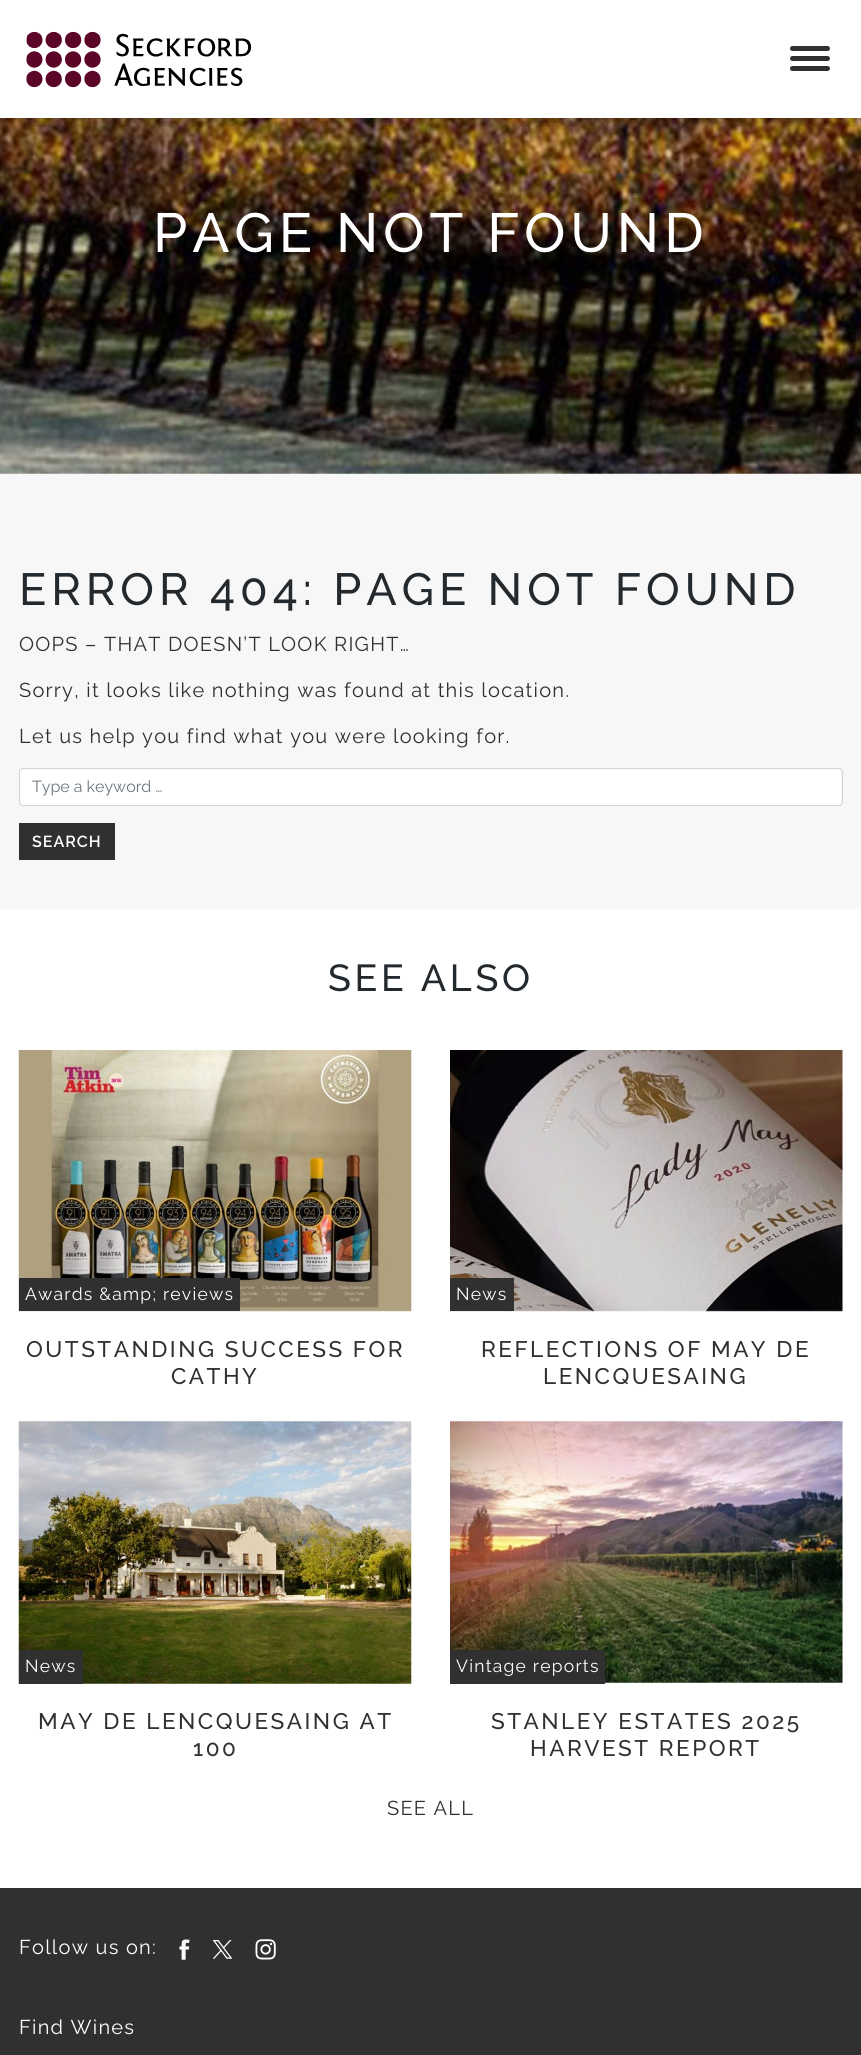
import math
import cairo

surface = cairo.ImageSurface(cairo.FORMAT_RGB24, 861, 2055)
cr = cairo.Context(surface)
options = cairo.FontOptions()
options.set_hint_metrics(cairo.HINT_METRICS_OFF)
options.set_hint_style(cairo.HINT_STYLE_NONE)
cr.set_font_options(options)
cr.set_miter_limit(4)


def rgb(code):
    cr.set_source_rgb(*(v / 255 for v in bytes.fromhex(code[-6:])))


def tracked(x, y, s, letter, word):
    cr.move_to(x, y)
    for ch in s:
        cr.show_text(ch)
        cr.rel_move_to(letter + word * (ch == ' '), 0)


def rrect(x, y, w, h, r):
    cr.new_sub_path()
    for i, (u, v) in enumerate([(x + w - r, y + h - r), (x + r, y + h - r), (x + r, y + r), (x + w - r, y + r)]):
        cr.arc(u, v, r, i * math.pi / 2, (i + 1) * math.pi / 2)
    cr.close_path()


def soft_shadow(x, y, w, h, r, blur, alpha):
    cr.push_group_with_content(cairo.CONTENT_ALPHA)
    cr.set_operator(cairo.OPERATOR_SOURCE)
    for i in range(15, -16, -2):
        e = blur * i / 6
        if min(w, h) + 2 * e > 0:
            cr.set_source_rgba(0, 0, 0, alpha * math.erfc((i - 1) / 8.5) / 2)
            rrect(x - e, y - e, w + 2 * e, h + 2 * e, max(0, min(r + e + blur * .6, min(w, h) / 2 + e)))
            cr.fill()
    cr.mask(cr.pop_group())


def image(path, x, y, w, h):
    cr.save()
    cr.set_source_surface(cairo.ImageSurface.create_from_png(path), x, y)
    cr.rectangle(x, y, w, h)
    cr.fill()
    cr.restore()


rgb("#f7f7f7")
cr.paint()
image("img/2.png", 0, 118, 861, 356)
rgb("#000000")
soft_shadow(-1, 5, 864, 120, 0, 11, 0.28)
rgb("#ffffff")
cr.rectangle(0, 0, 861, 118)
cr.fill()
image("img/1.png", 26, 31, 225, 57)
rgb("#303030")
rrect(790, 46, 40, 5, 2.5)
cr.fill()
rrect(790, 56, 40, 5, 2.5)
cr.fill()
rrect(790, 66, 40, 5, 2.5)
cr.fill()
rgb("#ffffff")
rrect(20, 769, 821, 36, 2.5)
cr.fill()
rrect(19.5, 768.5, 823, 37, 3.5)
rgb("#ced4da")
cr.set_line_width(1)
cr.stroke()
rgb("#303030")
cr.rectangle(19, 823, 96, 37)
cr.fill()
rgb("#ffffff")
cr.rectangle(0, 909, 861, 979)
cr.fill()
image("img/3.png", 18, 1050, 394, 262)
rgb("#303030")
cr.rectangle(19, 1278, 221, 33)
cr.fill()
image("img/4.png", 450, 1050, 393, 262)
cr.rectangle(450, 1278, 64, 33)
cr.fill()
image("img/5.png", 18, 1421, 394, 263)
cr.rectangle(19, 1650, 64, 34)
cr.fill()
image("img/6.png", 450, 1421, 393, 263)
cr.rectangle(450, 1650, 155, 34)
cr.fill()
cr.rectangle(0, 1888, 861, 167)
cr.fill()
image("img/7.png", 179, 1939, 11, 21)
image("img/8.png", 213, 1940, 20, 19)
image("img/9.png", 255, 1939, 21, 21)
cr.select_font_face("Raleway Medium")
cr.set_font_size(55)
rgb("#ffffff")
tracked(153, 252, "PAGE NOT FOUND", 5, 0)
cr.set_font_size(45)
rgb("#24292e")
tracked(19, 605, "ERROR 404: PAGE NOT FOUND", 5, 0)
cr.select_font_face("Raleway")
cr.set_font_size(20)
rgb("#303030")
for x, y, s in [
    (19, 651, "OOPS – THAT DOESN’T LOOK RIGHT…"),
    (19, 697, "Sorry, it looks like nothing was found at this location."),
    (19, 743, "Let us help you find what you were looking for."),
]:
    tracked(x, y, s, 1.25, 0)
cr.set_font_size(16)
rgb("#6c757d")
cr.move_to(32, 792)
cr.show_text("Type a keyword …")
cr.select_font_face("Raleway SemiBold")
rgb("#ffffff")
tracked(32, 847, "SEARCH", 1, 0)
cr.select_font_face("Raleway Medium")
cr.set_font_size(37.5)
rgb("#24292e")
tracked(328, 991, "SEE ALSO", 3.75, 0)
cr.select_font_face("Raleway")
cr.set_font_size(17.5)
rgb("#ffffff")
tracked(25, 1300, "Awards &amp; reviews", 1.25, 0)
cr.select_font_face("Raleway Medium")
cr.set_font_size(22.5)
rgb("#303030")
tracked(26, 1357, "OUTSTANDING SUCCESS FOR", 2.5, 0)
tracked(171, 1384, "CATHY", 2.5, 0)
cr.select_font_face("Raleway")
cr.set_font_size(17.5)
rgb("#ffffff")
tracked(456, 1300, "News", 1.25, 0)
cr.select_font_face("Raleway Medium")
cr.set_font_size(22.5)
rgb("#303030")
tracked(481, 1357, "REFLECTIONS OF MAY DE", 2.5, 0)
tracked(543, 1384, "LENCQUESAING", 2.5, 0)
cr.select_font_face("Raleway")
cr.set_font_size(17.5)
rgb("#ffffff")
tracked(25, 1672, "News", 1.25, 0)
cr.select_font_face("Raleway Medium")
cr.set_font_size(22.5)
rgb("#303030")
tracked(38, 1729, "MAY DE LENCQUESAING AT", 2.5, 0)
tracked(193, 1756, "100", 2.5, 0)
cr.select_font_face("Raleway")
cr.set_font_size(17.5)
rgb("#ffffff")
tracked(456, 1672, "Vintage reports", 1.25, 0)
cr.select_font_face("Raleway Medium")
cr.set_font_size(22.5)
rgb("#303030")
tracked(491, 1729, "STANLEY ESTATES 2025", 2.5, 0)
tracked(530, 1756, "HARVEST REPORT", 2.5, 0)
cr.select_font_face("Raleway")
cr.set_font_size(20)
tracked(387, 1815, "SEE ALL", 1.25, 0)
rgb("#ffffff")
tracked(19, 1954, "Follow us on:", 1.25, 0)
tracked(19, 2034, "Find Wines", 1.25, 0)
surface.write_to_png("page.png")
